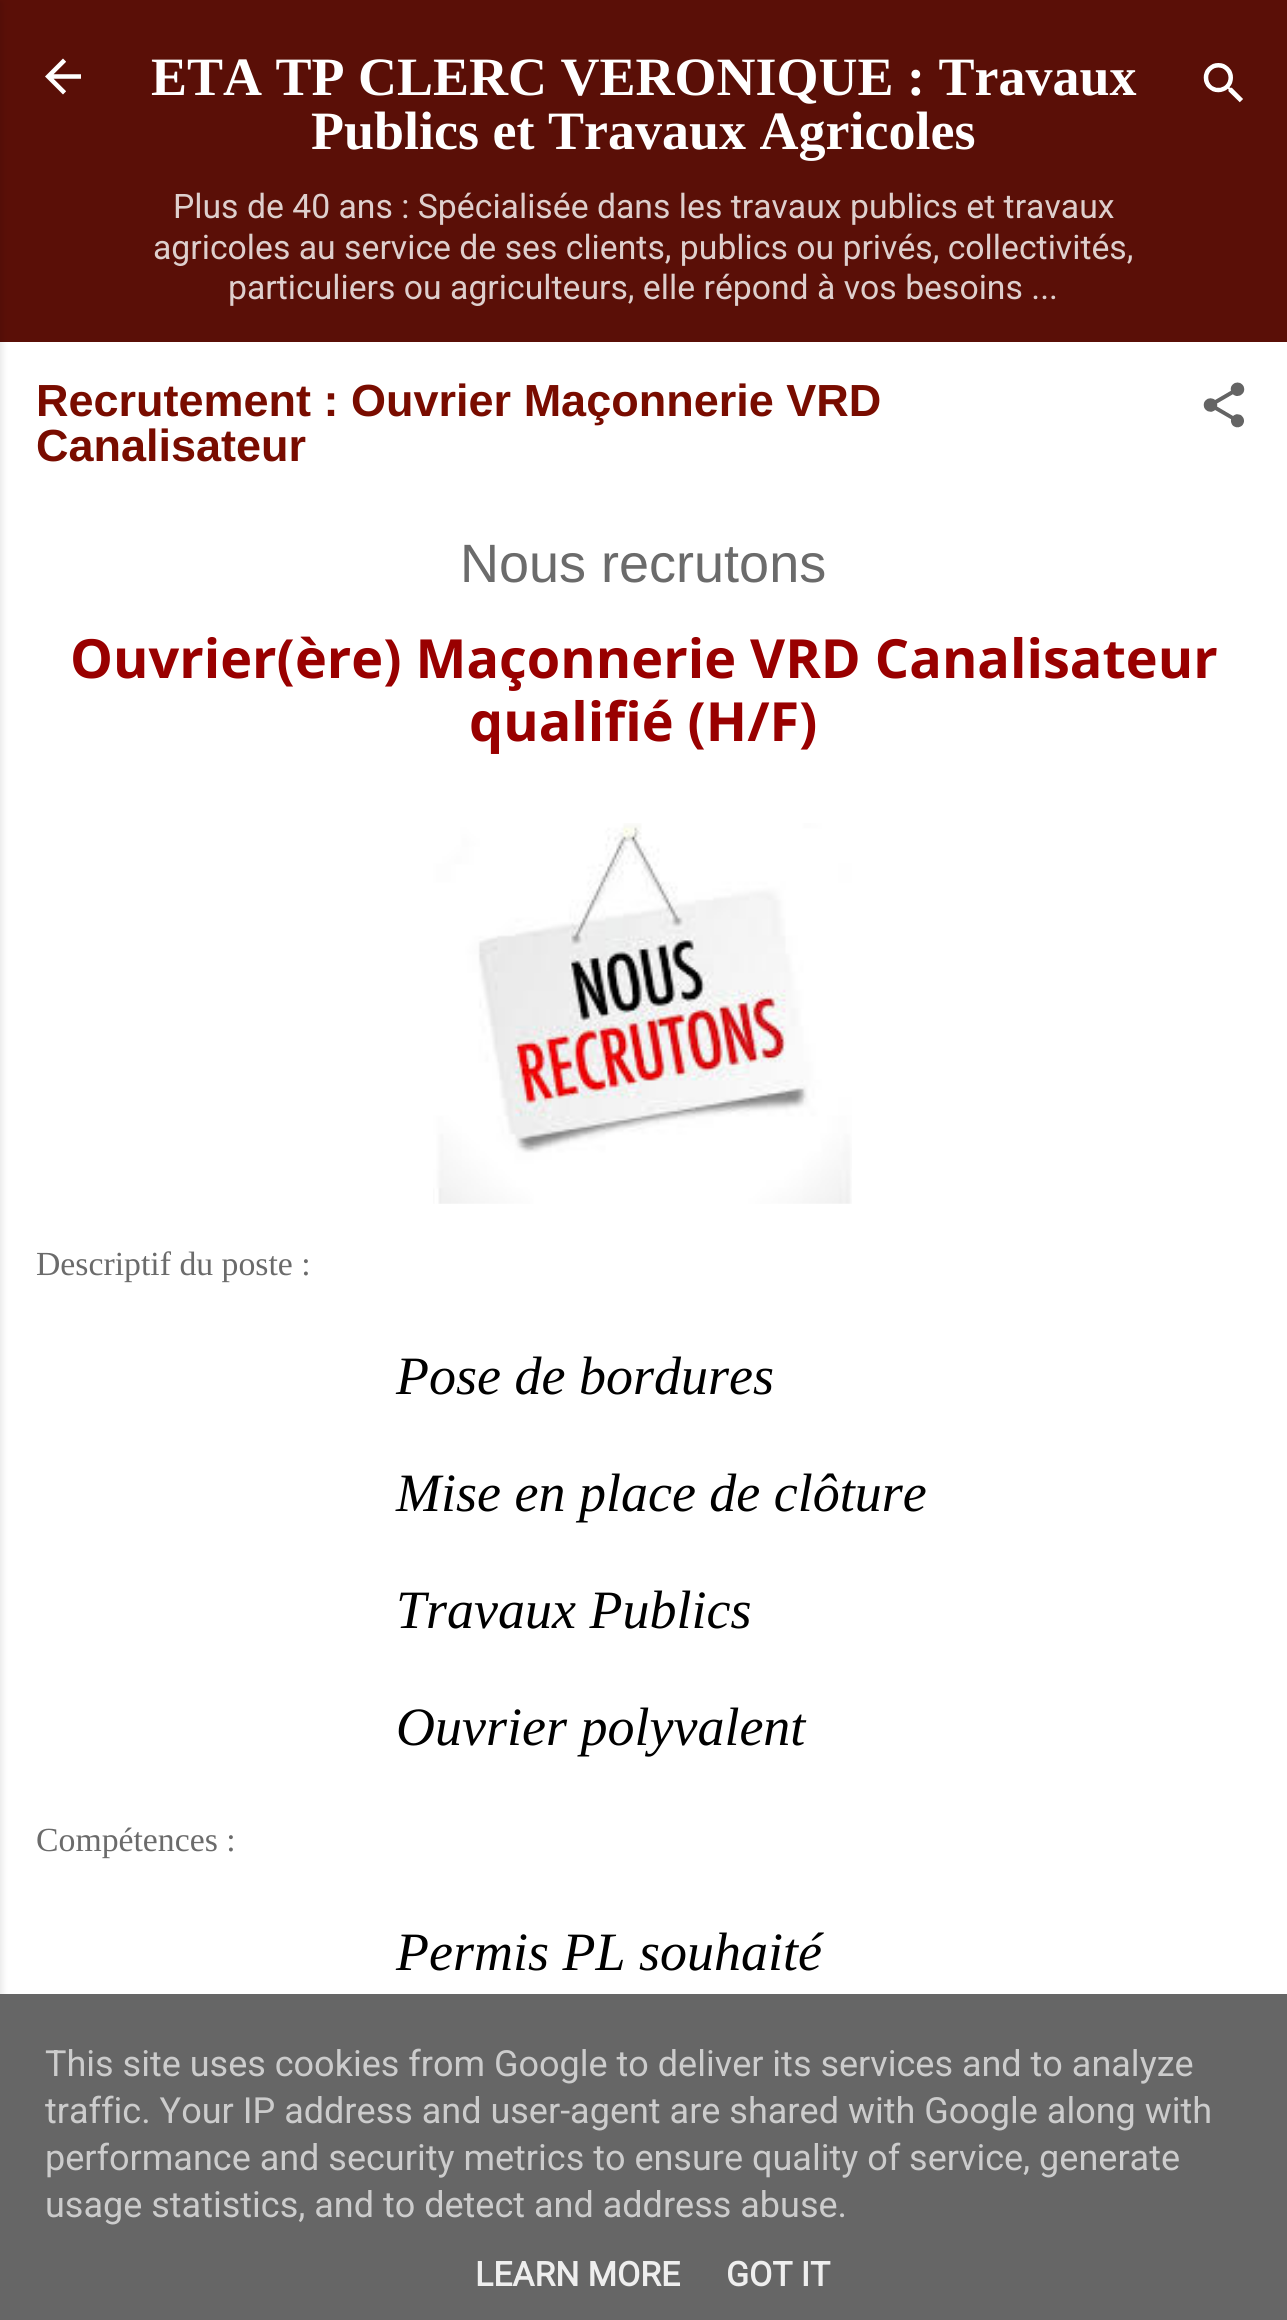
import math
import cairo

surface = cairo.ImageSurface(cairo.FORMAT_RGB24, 1287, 2320)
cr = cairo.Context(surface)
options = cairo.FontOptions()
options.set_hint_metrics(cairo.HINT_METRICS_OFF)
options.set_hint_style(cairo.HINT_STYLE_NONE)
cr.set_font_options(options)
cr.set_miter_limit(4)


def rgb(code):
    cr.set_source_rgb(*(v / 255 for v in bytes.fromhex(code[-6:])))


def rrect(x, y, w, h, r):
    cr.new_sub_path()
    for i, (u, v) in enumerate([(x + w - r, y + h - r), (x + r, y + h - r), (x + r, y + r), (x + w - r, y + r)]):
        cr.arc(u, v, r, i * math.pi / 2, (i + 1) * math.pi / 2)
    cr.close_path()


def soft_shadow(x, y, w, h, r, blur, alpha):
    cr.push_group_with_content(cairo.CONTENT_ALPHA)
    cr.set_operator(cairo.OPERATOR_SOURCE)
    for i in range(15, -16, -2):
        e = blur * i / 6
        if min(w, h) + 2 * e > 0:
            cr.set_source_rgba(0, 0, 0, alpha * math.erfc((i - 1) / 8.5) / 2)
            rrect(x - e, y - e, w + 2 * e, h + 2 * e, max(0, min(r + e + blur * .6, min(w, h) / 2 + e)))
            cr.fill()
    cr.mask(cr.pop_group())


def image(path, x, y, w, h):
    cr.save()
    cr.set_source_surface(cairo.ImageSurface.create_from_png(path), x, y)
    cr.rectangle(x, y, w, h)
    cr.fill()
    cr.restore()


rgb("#5a0f07")
cr.paint()
rgb("#ffffff")
cr.rectangle(0, 342, 1287, 1652)
cr.fill()
rgb("#000000")
soft_shadow(-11, 2, 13, 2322, 0, 3.5, 0.1)
image("img/1.png", 45, 58, 36, 37)
image("img/2.png", 1203, 63, 40, 40)
image("img/3.png", 1203, 382, 42, 46)
image("img/4.png", 433, 823, 419, 381)
rgb("#666666")
cr.rectangle(0, 1994, 1287, 326)
cr.fill()
cr.select_font_face("Liberation Serif", cairo.FONT_SLANT_NORMAL, cairo.FONT_WEIGHT_BOLD)
cr.set_font_size(54)
rgb("#ffffff")
cr.move_to(151, 95)
cr.show_text("ETA TP CLERC VERONIQUE : Travaux")
cr.move_to(311, 149)
cr.show_text("Publics et Travaux Agricoles")
cr.select_font_face("Roboto")
cr.set_font_size(33.75)
rgb("#decfcd")
for x, y, s in [
    (173, 218, "Plus de 40 ans : Spécialisée dans les travaux publics et travaux"),
    (153, 259, "agricoles au service de ses clients, publics ou privés, collectivités,"),
    (228, 299, "particuliers ou agriculteurs, elle répond à vos besoins ..."),
]:
    cr.move_to(x, y)
    cr.show_text(s)
cr.select_font_face("Liberation Sans", cairo.FONT_SLANT_NORMAL, cairo.FONT_WEIGHT_BOLD)
cr.set_font_size(45)
rgb("#790c00")
cr.move_to(36, 416)
cr.show_text("Recrutement : Ouvrier Maçonnerie VRD")
cr.move_to(36, 461)
cr.show_text("Canalisateur")
cr.select_font_face("Liberation Sans")
cr.set_font_size(54)
rgb("#6b6b6b")
cr.move_to(460, 582)
cr.show_text("Nous recrutons")
cr.select_font_face("Open Sans", cairo.FONT_SLANT_NORMAL, cairo.FONT_WEIGHT_BOLD)
rgb("#990000")
cr.move_to(70, 678)
cr.show_text("Ouvrier(ère) Maçonnerie VRD Canalisateur")
cr.move_to(469, 741)
cr.show_text("qualifié (H/F)")
cr.select_font_face("Liberation Serif")
cr.set_font_size(33.75)
rgb("#6b6b6b")
cr.move_to(36, 1275)
cr.show_text("Descriptif du poste :")
cr.select_font_face("Liberation Serif", cairo.FONT_SLANT_ITALIC)
cr.set_font_size(54)
rgb("#000000")
for x, y, s in [
    (396, 1394, "Pose de bordures"),
    (396, 1511, "Mise en place de clôture"),
    (396, 1628, "Travaux Publics"),
    (396, 1745, "Ouvrier polyvalent"),
]:
    cr.move_to(x, y)
    cr.show_text(s)
cr.select_font_face("Liberation Serif")
cr.set_font_size(33.75)
rgb("#6b6b6b")
cr.move_to(36, 1851)
cr.show_text("Compétences :")
cr.select_font_face("Liberation Serif", cairo.FONT_SLANT_ITALIC)
cr.set_font_size(54)
rgb("#000000")
cr.move_to(396, 1970)
cr.show_text("Permis PL souhaité")
cr.select_font_face("Roboto")
cr.set_font_size(36)
rgb("#cccccc")
for x, y, s in [
    (45, 2076, "This site uses cookies from Google to deliver its services and to analyze"),
    (45, 2123, "traffic. Your IP address and user-agent are shared with Google along with"),
    (45, 2170, "performance and security metrics to ensure quality of service, generate"),
    (45, 2217, "usage statistics, and to detect and address abuse."),
]:
    cr.move_to(x, y)
    cr.show_text(s)
cr.select_font_face("Roboto", cairo.FONT_SLANT_NORMAL, cairo.FONT_WEIGHT_BOLD)
cr.set_font_size(33.75)
rgb("#eeeeee")
cr.move_to(475, 2286)
cr.show_text("LEARN MORE")
cr.move_to(726, 2286)
cr.show_text("GOT IT")
surface.write_to_png("page.png")
